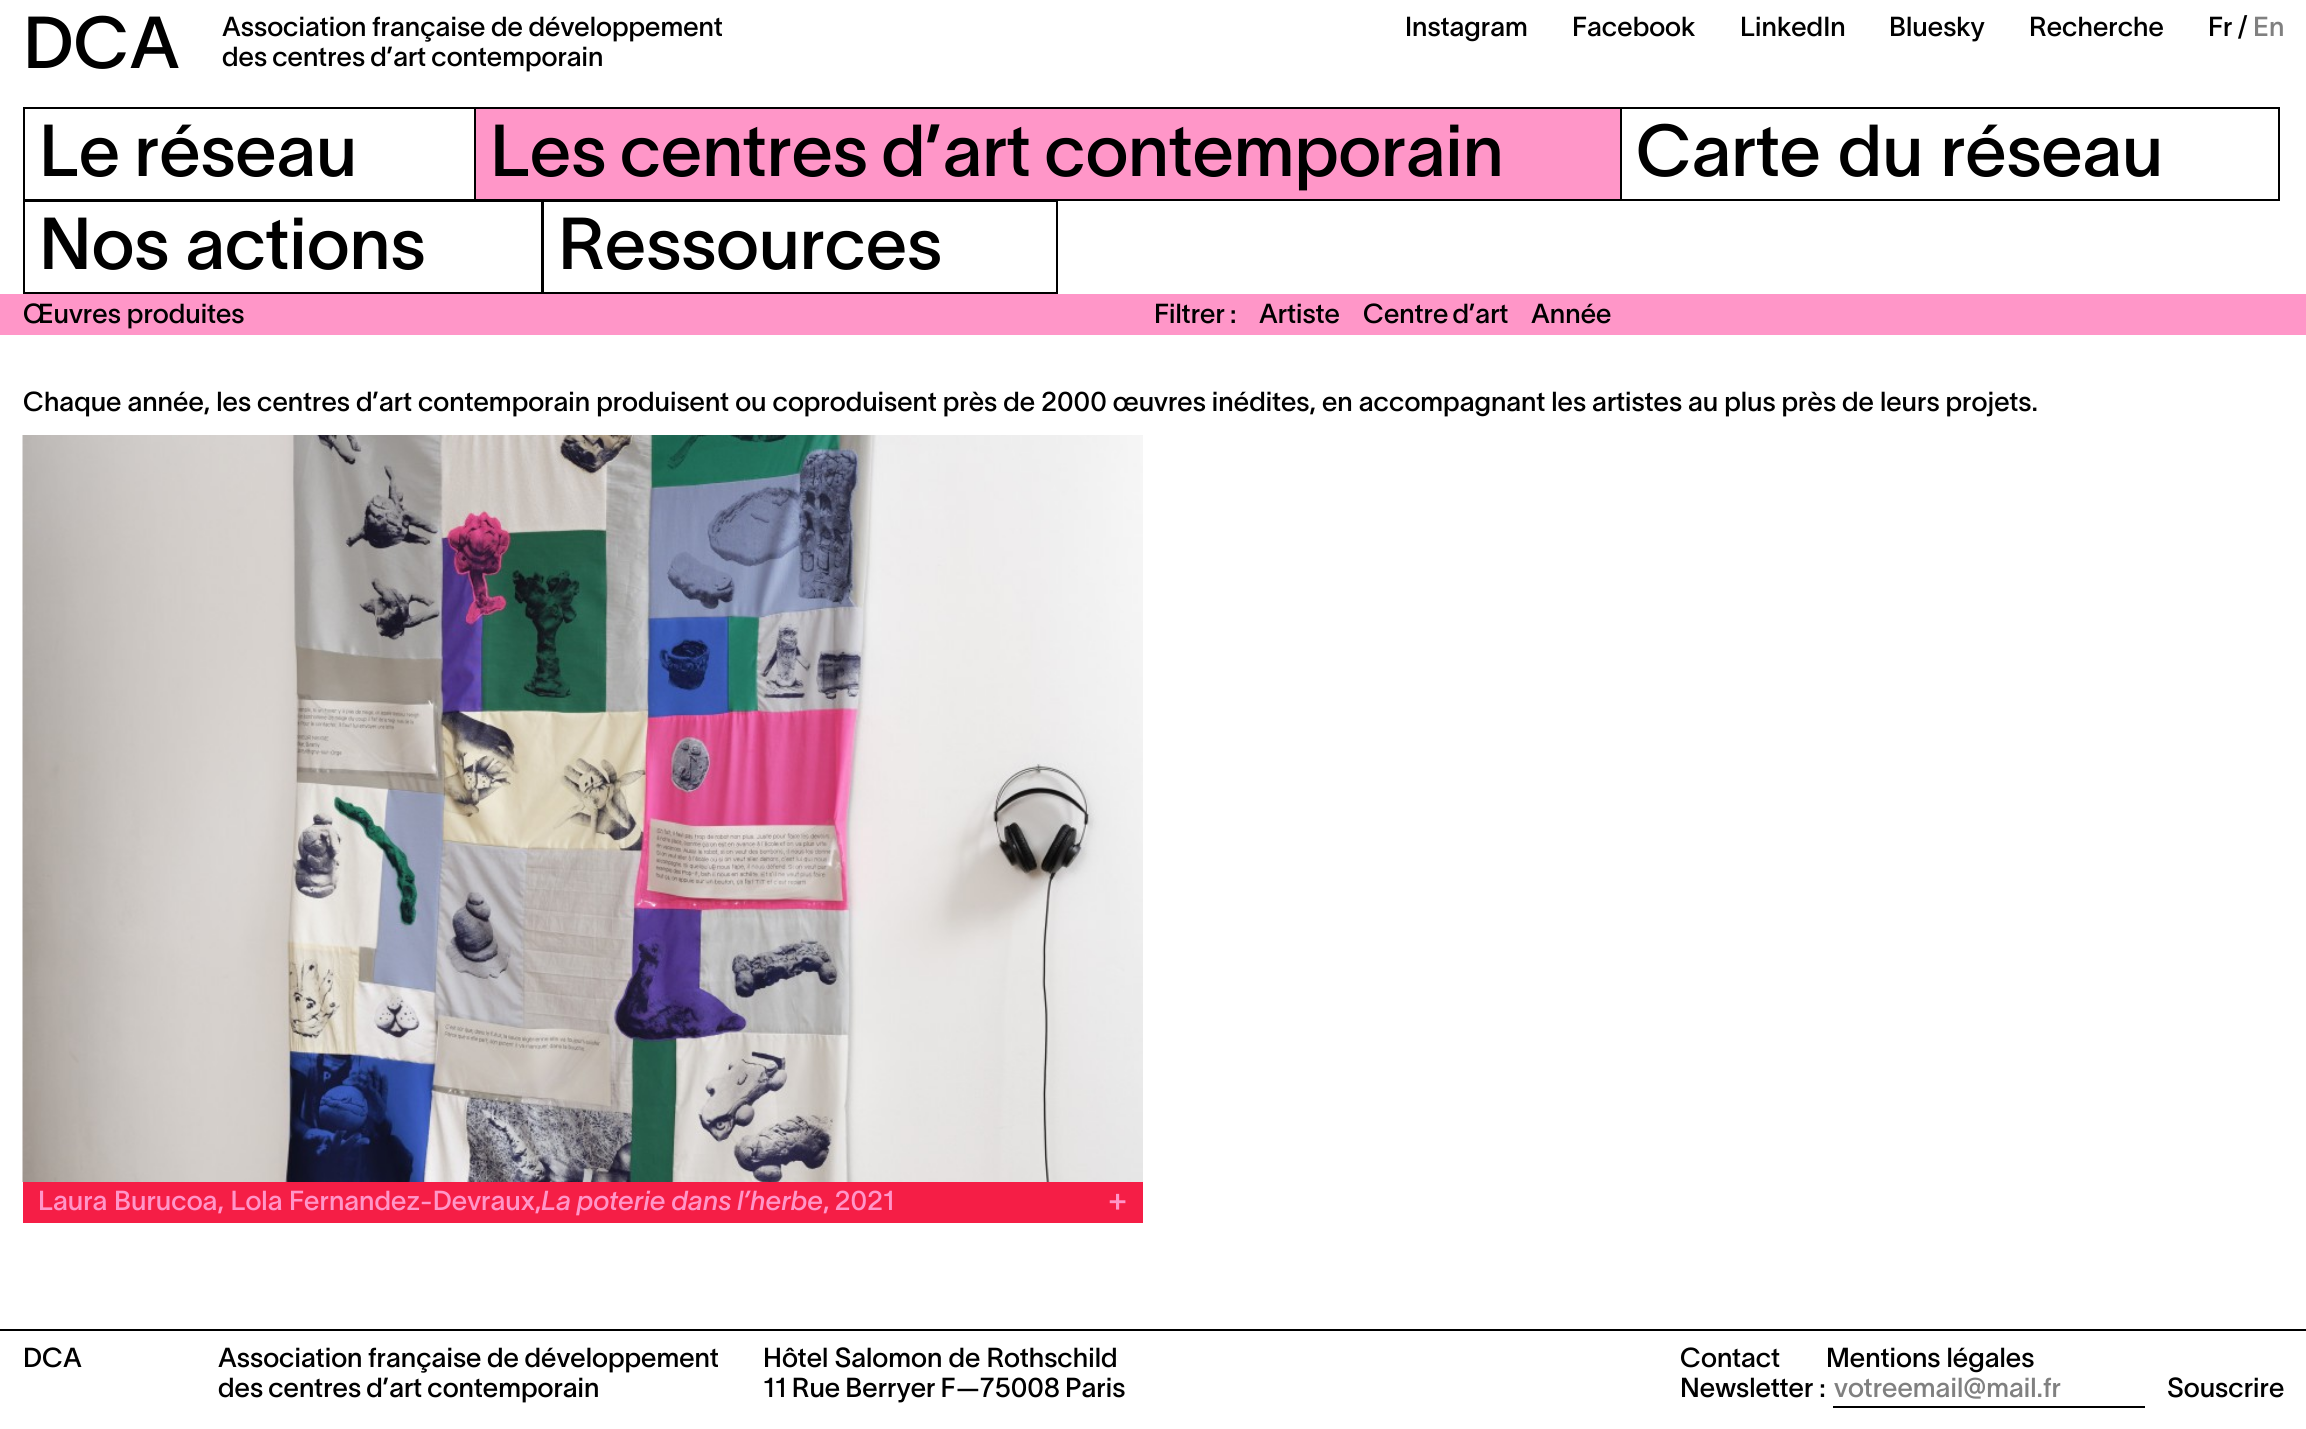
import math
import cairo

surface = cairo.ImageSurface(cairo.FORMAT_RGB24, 2306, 1429)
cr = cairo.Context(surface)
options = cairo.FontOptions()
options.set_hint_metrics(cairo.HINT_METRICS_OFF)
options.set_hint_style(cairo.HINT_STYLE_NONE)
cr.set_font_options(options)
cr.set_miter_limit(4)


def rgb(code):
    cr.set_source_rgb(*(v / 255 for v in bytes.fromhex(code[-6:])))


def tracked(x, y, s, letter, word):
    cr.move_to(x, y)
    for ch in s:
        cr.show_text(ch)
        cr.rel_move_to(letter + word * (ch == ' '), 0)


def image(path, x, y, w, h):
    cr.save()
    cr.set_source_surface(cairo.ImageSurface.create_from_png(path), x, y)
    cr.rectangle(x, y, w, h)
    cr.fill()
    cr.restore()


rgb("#ffffff")
cr.paint()
cr.rectangle(24, 108, 451, 92)
rgb("#000000")
cr.stroke()
rgb("#ff96c8")
cr.rectangle(475, 108, 1146, 92)
cr.fill_preserve()
rgb("#000000")
cr.stroke()
cr.rectangle(1621, 108, 658, 92)
cr.stroke()
cr.rectangle(24, 201, 518, 92)
cr.stroke()
cr.rectangle(543, 201, 514, 92)
cr.stroke()
rgb("#ff96c8")
cr.rectangle(0, 294, 2306, 41)
cr.fill()
image("img/1.png", 22, 435, 1121, 747)
for x, y, w, h, color in [
    (23, 1182, 1120, 41, "#f51e46"),
    (0, 1329, 2306, 2, "#000000"),
    (1833, 1406, 312, 2, "#000000"),
]:
    rgb(color)
    cr.rectangle(x, y, w, h)
    cr.fill()
cr.select_font_face("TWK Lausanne")
cr.set_font_size(72)
cr.move_to(23, 68)
cr.show_text("DCA")
cr.set_font_size(27)
tracked(222, 36, "Association française de développement", 0, -0.5)
tracked(222, 66, "des centres d’art contemporain", 0, -1)
for x, y, s in [
    (1405, 36, "Instagram"),
    (1572, 36, "Facebook"),
    (1740, 36, "LinkedIn"),
    (1889, 36, "Bluesky"),
    (2029, 36, "Recherche"),
    (2208, 36, "Fr"),
    (2238, 36, "/"),
]:
    cr.move_to(x, y)
    cr.show_text(s)
rgb("#808080")
cr.move_to(2253, 36)
cr.show_text("En")
cr.set_font_size(72)
rgb("#000000")
tracked(39, 176, "Le réseau", 0, -2)
tracked(490, 176, "Les centres d’art contemporain", 0, -2.5)
tracked(1636, 176, "Carte du réseau", 0, 1)
cr.move_to(39, 269)
cr.show_text("Nos actions")
cr.move_to(558, 269)
cr.show_text("Ressources")
cr.set_font_size(27)
for x, y, s in [
    (23, 323, "Œuvres produites"),
    (1154, 323, "Filtrer"),
    (1230, 323, ":"),
    (1259, 323, "Artiste"),
]:
    cr.move_to(x, y)
    cr.show_text(s)
tracked(1363, 323, "Centre d’art", 0, -2)
cr.move_to(1531, 323)
cr.show_text("Année")
tracked(23, 411, "Chaque année, les centres d’art contemporain produisent ou coproduisent près de 2000 œuvres inédites, en accompagnant les artistes au plus près de leurs projets.", 0, -0.1)
rgb("#ff96c8")
tracked(38, 1210, "Laura Burucoa, Lola Fernandez-Devraux,", 0, 0.5)
cr.select_font_face("TWK Lausanne", cairo.FONT_SLANT_ITALIC)
tracked(541, 1210, "La poterie dans l’herbe", 0, -0.5)
cr.select_font_face("TWK Lausanne")
tracked(823, 1210, ", 2021", 0, -1)
cr.set_font_size(32)
cr.move_to(1108, 1210)
cr.show_text("+")
cr.set_font_size(27)
rgb("#000000")
cr.move_to(23, 1367)
cr.show_text("DCA")
tracked(218, 1367, "Association française de développement", 0, -0.5)
tracked(218, 1397, "des centres d’art contemporain", 0, -1)
cr.move_to(763, 1367)
cr.show_text("Hôtel Salomon de Rothschild")
tracked(763, 1397, "11 Rue Berryer F—75008 Paris", 0, -1)
for x, y, s in [
    (1680, 1367, "Contact"),
    (1826, 1367, "Mentions légales"),
    (1680, 1397, "Newsletter :"),
]:
    cr.move_to(x, y)
    cr.show_text(s)
rgb("#808080")
cr.move_to(1834, 1397)
cr.show_text("votreemail@mail.fr")
rgb("#000000")
cr.move_to(2167, 1397)
cr.show_text("Souscrire")
surface.write_to_png("page.png")
